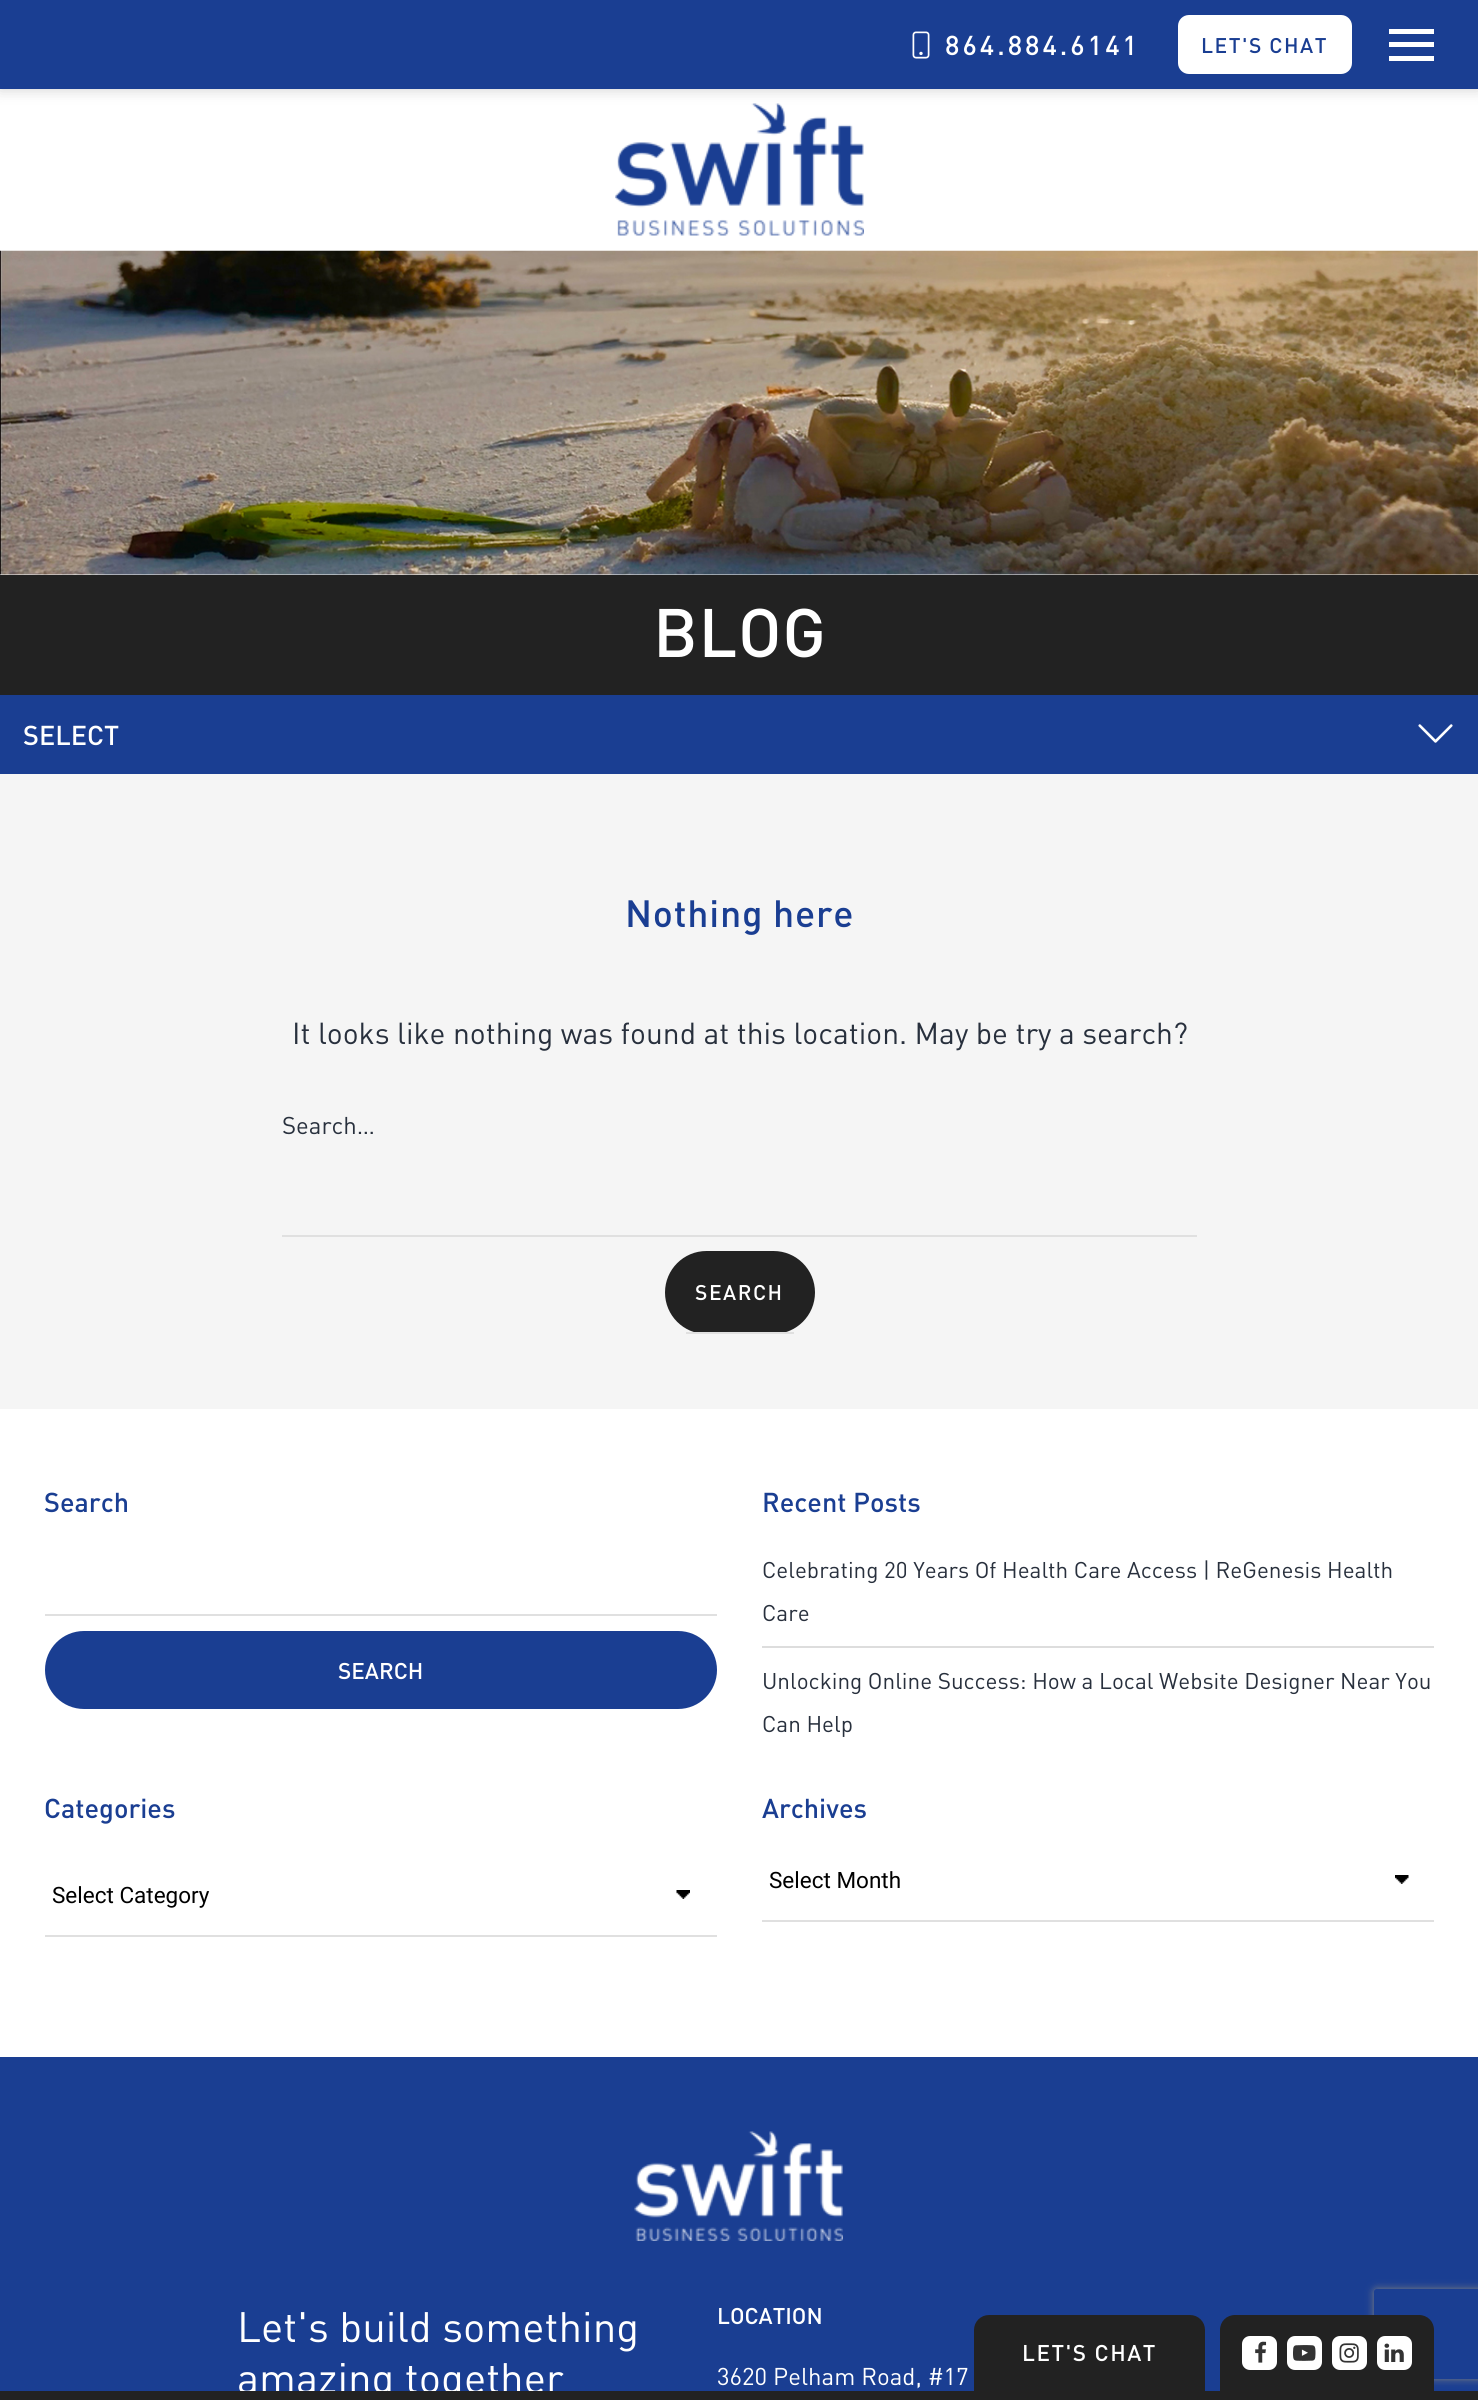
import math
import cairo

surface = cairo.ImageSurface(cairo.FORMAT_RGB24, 1478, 2400)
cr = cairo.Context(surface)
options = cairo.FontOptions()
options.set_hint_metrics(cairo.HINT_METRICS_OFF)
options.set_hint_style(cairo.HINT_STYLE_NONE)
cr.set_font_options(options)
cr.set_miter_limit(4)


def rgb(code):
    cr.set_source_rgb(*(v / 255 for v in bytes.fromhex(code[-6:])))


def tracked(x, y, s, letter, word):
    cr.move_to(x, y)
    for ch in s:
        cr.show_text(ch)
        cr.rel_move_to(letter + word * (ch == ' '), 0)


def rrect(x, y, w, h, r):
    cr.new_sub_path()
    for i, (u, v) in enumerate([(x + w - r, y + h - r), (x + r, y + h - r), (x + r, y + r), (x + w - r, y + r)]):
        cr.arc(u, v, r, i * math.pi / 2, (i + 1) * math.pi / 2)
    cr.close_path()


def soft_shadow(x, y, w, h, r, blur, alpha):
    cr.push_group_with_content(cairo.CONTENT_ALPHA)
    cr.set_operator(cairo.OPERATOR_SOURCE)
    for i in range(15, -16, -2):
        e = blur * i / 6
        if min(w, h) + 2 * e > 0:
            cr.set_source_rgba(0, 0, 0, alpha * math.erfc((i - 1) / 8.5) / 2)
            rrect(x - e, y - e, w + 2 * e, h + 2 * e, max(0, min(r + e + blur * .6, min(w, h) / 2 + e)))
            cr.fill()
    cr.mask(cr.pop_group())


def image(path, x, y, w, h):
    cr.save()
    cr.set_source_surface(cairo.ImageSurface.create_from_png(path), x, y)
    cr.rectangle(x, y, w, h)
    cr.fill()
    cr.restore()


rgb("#ffffff")
cr.paint()
image("img/2.png", 615, 103, 249, 133)
rgb("#000000")
soft_shadow(0, 0, 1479, 89, 0, 7.5, 0.2)
rgb("#1a3e92")
cr.rectangle(0, 0, 1478, 89)
cr.fill()
image("img/1.png", 912, 31, 18, 28)
rgb("#ffffff")
rrect(1179, 16, 172, 57, 10)
cr.fill_preserve()
cr.stroke()
for x, y, w, h, color in [
    (1389, 29, 45, 5, "#ffffff"),
    (1389, 42, 45, 5, "#ffffff"),
    (1389, 56, 45, 5, "#ffffff"),
]:
    rgb(color)
    cr.rectangle(x, y, w, h)
    cr.fill()
image("img/3.png", 0, 250, 1478, 325)
rgb("#222222")
cr.rectangle(0, 575, 1478, 120)
cr.fill()
rgb("#1a3e92")
cr.rectangle(0, 695, 1478, 79)
cr.fill()
image("img/4.png", 1418, 724, 35, 19)
rgb("#f5f5f5")
cr.rectangle(0, 774, 1478, 635)
cr.fill()
rgb("#e0e0e0")
cr.rectangle(282, 1235, 915, 2)
cr.fill()
rgb("#222222")
rrect(665, 1251, 150, 83, 41.5)
cr.fill()
rgb("#e0e0e0")
cr.rectangle(686, 1332, 108, 2)
cr.fill()
cr.rectangle(45, 1614, 672, 2)
cr.fill()
rgb("#1a3e92")
rrect(46.5, 1632.5, 669, 75, 37.5)
cr.fill_preserve()
cr.set_line_width(3)
cr.stroke()
rgb("#dddddd")
cr.rectangle(762, 1646, 672, 2)
cr.fill()
image("img/5.png", 676, 1890, 14, 9)
rgb("#e0e0e0")
cr.rectangle(45, 1935, 672, 2)
cr.fill()
image("img/6.png", 1395, 1875, 14, 9)
cr.rectangle(762, 1920, 672, 2)
cr.fill()
rgb("#1a3e92")
cr.rectangle(0, 2057, 1478, 334)
cr.fill()
image("img/7.png", 634, 2131, 209, 110)
rgb("#222222")
cr.new_path()
cr.move_to(989, 2316.5)
cr.line_to(1190, 2316.5)
cr.curve_to(1197.5, 2316.5, 1203.5, 2322.5, 1203.5, 2330)
cr.line_to(1203.5, 2389.5)
cr.line_to(975.5, 2389.5)
cr.line_to(975.5, 2330)
cr.curve_to(975.5, 2322.5, 981.5, 2316.5, 989, 2316.5)
cr.close_path()
cr.fill_preserve()
cr.stroke()
cr.save()
cr.set_fill_rule(cairo.FILL_RULE_EVEN_ODD)
cr.new_path()
cr.move_to(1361, 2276)
cr.line_to(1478, 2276)
cr.line_to(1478, 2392)
cr.line_to(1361, 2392)
cr.close_path()
cr.move_to(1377, 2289)
cr.line_to(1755, 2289)
cr.curve_to(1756.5, 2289, 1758, 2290.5, 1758, 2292)
cr.line_to(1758, 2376)
cr.curve_to(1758, 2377.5, 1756.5, 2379, 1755, 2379)
cr.line_to(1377, 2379)
cr.curve_to(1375.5, 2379, 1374, 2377.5, 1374, 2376)
cr.line_to(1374, 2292)
cr.curve_to(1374, 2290.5, 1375.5, 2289, 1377, 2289)
cr.close_path()
cr.clip()
rgb("#808080")
soft_shadow(1374, 2289, 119, 90, 3, 4, 1)
cr.restore()
cr.new_path()
cr.move_to(1235, 2315)
cr.line_to(1419, 2315)
cr.curve_to(1427.5, 2315, 1434, 2321.5, 1434, 2330)
cr.line_to(1434, 2391)
cr.line_to(1220, 2391)
cr.line_to(1220, 2330)
cr.curve_to(1220, 2321.5, 1226.5, 2315, 1235, 2315)
cr.close_path()
cr.fill()
rgb("#ffffff")
rrect(1243, 2337, 33, 32, 7)
cr.fill_preserve()
cr.set_line_width(2)
cr.stroke()
image("img/8.png", 1255, 2341, 12, 22)
rrect(1288, 2337, 33, 32, 7)
cr.fill_preserve()
cr.stroke()
image("img/9.png", 1293, 2345, 23, 16)
rrect(1333, 2337, 33, 32, 7)
cr.fill_preserve()
cr.stroke()
image("img/10.png", 1339, 2343, 20, 20)
rrect(1378, 2337, 33, 32, 7)
cr.fill_preserve()
cr.stroke()
image("img/11.png", 1384, 2343, 20, 19)
cr.select_font_face("DIN Medium")
cr.set_font_size(27)
tracked(945, 55, "864.884.6141", 3, 0)
cr.set_font_size(21)
rgb("#1a3e92")
tracked(1201, 53, "LET'S CHAT", 1.5, 0)
cr.set_font_size(67.5)
rgb("#ffffff")
tracked(653, 657, "BLOG", 0.75, 0)
cr.set_font_size(27)
cr.move_to(23, 745)
cr.show_text("SELECT")
cr.set_font_size(37.5)
rgb("#1a3e92")
tracked(625, 927, "Nothing here", 0.75, 0)
cr.select_font_face("DIN")
cr.set_font_size(30)
rgb("#28303d")
cr.move_to(292, 1044)
cr.show_text("It looks like nothing was found at this location. May be try a search?")
cr.set_font_size(24)
cr.move_to(282, 1134)
cr.show_text("Search…")
cr.select_font_face("DIN Medium")
cr.set_font_size(21)
rgb("#ffffff")
tracked(695, 1300, "SEARCH", 1.5, 0)
cr.set_font_size(27)
rgb("#1a3e92")
cr.move_to(44, 1512)
cr.show_text("Search")
cr.set_font_size(22.5)
rgb("#ffffff")
cr.move_to(338, 1679)
cr.show_text("SEARCH")
cr.set_font_size(27)
rgb("#1a3e92")
cr.move_to(762, 1512)
cr.show_text("Recent Posts")
cr.select_font_face("DIN")
cr.set_font_size(22.5)
rgb("#28303d")
for x, y, s in [
    (762, 1578, "Celebrating 20 Years Of Health Care Access | ReGenesis Health"),
    (762, 1621, "Care"),
    (762, 1689, "Unlocking Online Success: How a Local Website Designer Near You"),
    (762, 1732, "Can Help"),
]:
    cr.move_to(x, y)
    cr.show_text(s)
cr.select_font_face("DIN Medium")
cr.set_font_size(27)
rgb("#1a3e92")
cr.move_to(44, 1818)
cr.show_text("Categories")
cr.select_font_face("Roboto")
cr.set_font_size(22.5)
rgb("#000000")
cr.move_to(52, 1903)
cr.show_text("Select Category")
cr.select_font_face("DIN Medium")
cr.set_font_size(27)
rgb("#1a3e92")
cr.move_to(762, 1818)
cr.show_text("Archives")
cr.select_font_face("Roboto")
cr.set_font_size(22.5)
rgb("#000000")
cr.move_to(769, 1888)
cr.show_text("Select Month")
cr.select_font_face("DIN")
cr.set_font_size(42)
rgb("#ffffff")
cr.move_to(237, 2342)
cr.show_text("Let's build something")
cr.move_to(237, 2393)
cr.show_text("amazing together")
cr.select_font_face("DIN Medium")
cr.set_font_size(22.5)
cr.move_to(717, 2324)
cr.show_text("LOCATION")
cr.select_font_face("DIN")
cr.set_font_size(24)
cr.move_to(717, 2385)
cr.show_text("3620 Pelham Road, #17")
cr.select_font_face("DIN Medium")
cr.set_font_size(22.5)
tracked(1022, 2361, "LET'S CHAT", 1.5, 0)
rgb("#222222")
cr.rectangle(0, 2391, 1478, 9)
cr.fill()
surface.write_to_png("page.png")
